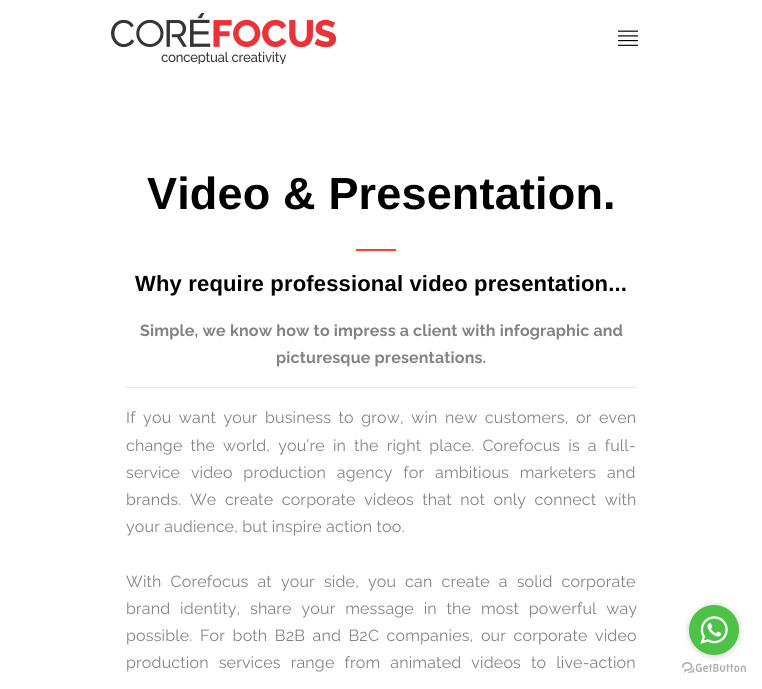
import math
import cairo

surface = cairo.ImageSurface(cairo.FORMAT_RGB24, 762, 689)
cr = cairo.Context(surface)
options = cairo.FontOptions()
options.set_hint_metrics(cairo.HINT_METRICS_OFF)
options.set_hint_style(cairo.HINT_STYLE_NONE)
cr.set_font_options(options)
cr.set_miter_limit(4)


def rgb(code):
    cr.set_source_rgb(*(v / 255 for v in bytes.fromhex(code[-6:])))


def tracked(x, y, s, letter, word):
    cr.move_to(x, y)
    for ch in s:
        cr.show_text(ch)
        cr.rel_move_to(letter + word * (ch == ' '), 0)


def rrect(x, y, w, h, r):
    cr.new_sub_path()
    for i, (u, v) in enumerate([(x + w - r, y + h - r), (x + r, y + h - r), (x + r, y + r), (x + w - r, y + r)]):
        cr.arc(u, v, r, i * math.pi / 2, (i + 1) * math.pi / 2)
    cr.close_path()


def soft_shadow(x, y, w, h, r, blur, alpha):
    cr.push_group_with_content(cairo.CONTENT_ALPHA)
    cr.set_operator(cairo.OPERATOR_SOURCE)
    for i in range(15, -16, -2):
        e = blur * i / 6
        if min(w, h) + 2 * e > 0:
            cr.set_source_rgba(0, 0, 0, alpha * math.erfc((i - 1) / 8.5) / 2)
            rrect(x - e, y - e, w + 2 * e, h + 2 * e, max(0, min(r + e + blur * .6, min(w, h) / 2 + e)))
            cr.fill()
    cr.mask(cr.pop_group())


def image(path, x, y, w, h):
    cr.save()
    cr.set_source_surface(cairo.ImageSurface.create_from_png(path), x, y)
    cr.rectangle(x, y, w, h)
    cr.fill()
    cr.restore()


rgb("#ffffff")
cr.paint()
image("img/1.png", 111, 13, 225, 51)
image("img/2.png", 618, 30, 20, 16)
rgb("#f44336")
cr.rectangle(356, 249, 40, 2)
cr.fill()
rgb("#e6e6e6")
cr.rectangle(126, 387, 510, 1)
cr.fill()
image("img/4.png", 682, 662, 64, 11)
rgb("#888888")
soft_shadow(689, 606, 50, 50, 25, 3.5, 0.4)
rgb("#4dc247")
cr.arc(714, 630, 25, 0, 2 * math.pi)
cr.fill()
image("img/3.png", 700, 616, 28, 28)
cr.select_font_face("Liberation Sans", cairo.FONT_SLANT_NORMAL, cairo.FONT_WEIGHT_BOLD)
cr.set_font_size(45)
rgb("#000000")
tracked(147, 209, "Video & Presentation.", 0.17, 0)
cr.set_font_size(22)
tracked(135, 291, "Why require professional video presentation...", 0.17, 0)
cr.select_font_face("Raleway", cairo.FONT_SLANT_NORMAL, cairo.FONT_WEIGHT_BOLD)
cr.set_font_size(16)
rgb("#818385")
tracked(140, 336, "Simple, we know how to impress a client with infographic and", 0.17, 0)
tracked(276, 363, "picturesque presentations.", 0.17, 0)
cr.select_font_face("Raleway")
tracked(126, 423, "If you want your business to grow, win new customers, or even", 0.17, 3.25)
tracked(126, 451, "change the world, you’re in the right place. Corefocus is a full-", 0.17, 3.75)
tracked(126, 478, "service video production agency for ambitious marketers and", 0.17, 6.5)
tracked(126, 505, "brands. We create corporate videos that not only connect with", 0.17, 4.25)
tracked(126, 532, "your audience, but inspire action too.", 0.17, 0)
tracked(126, 587, "With Corefocus at your side, you can create a solid corporate", 0.17, 4.75)
tracked(126, 614, "brand identity, share your message in the most powerful way", 0.17, 5.5)
tracked(126, 641, "possible. For both B2B and B2C companies, our corporate video", 0.17, 3.25)
tracked(126, 668, "production services range from animated videos to live-action", 0.17, 5.75)
surface.write_to_png("page.png")
